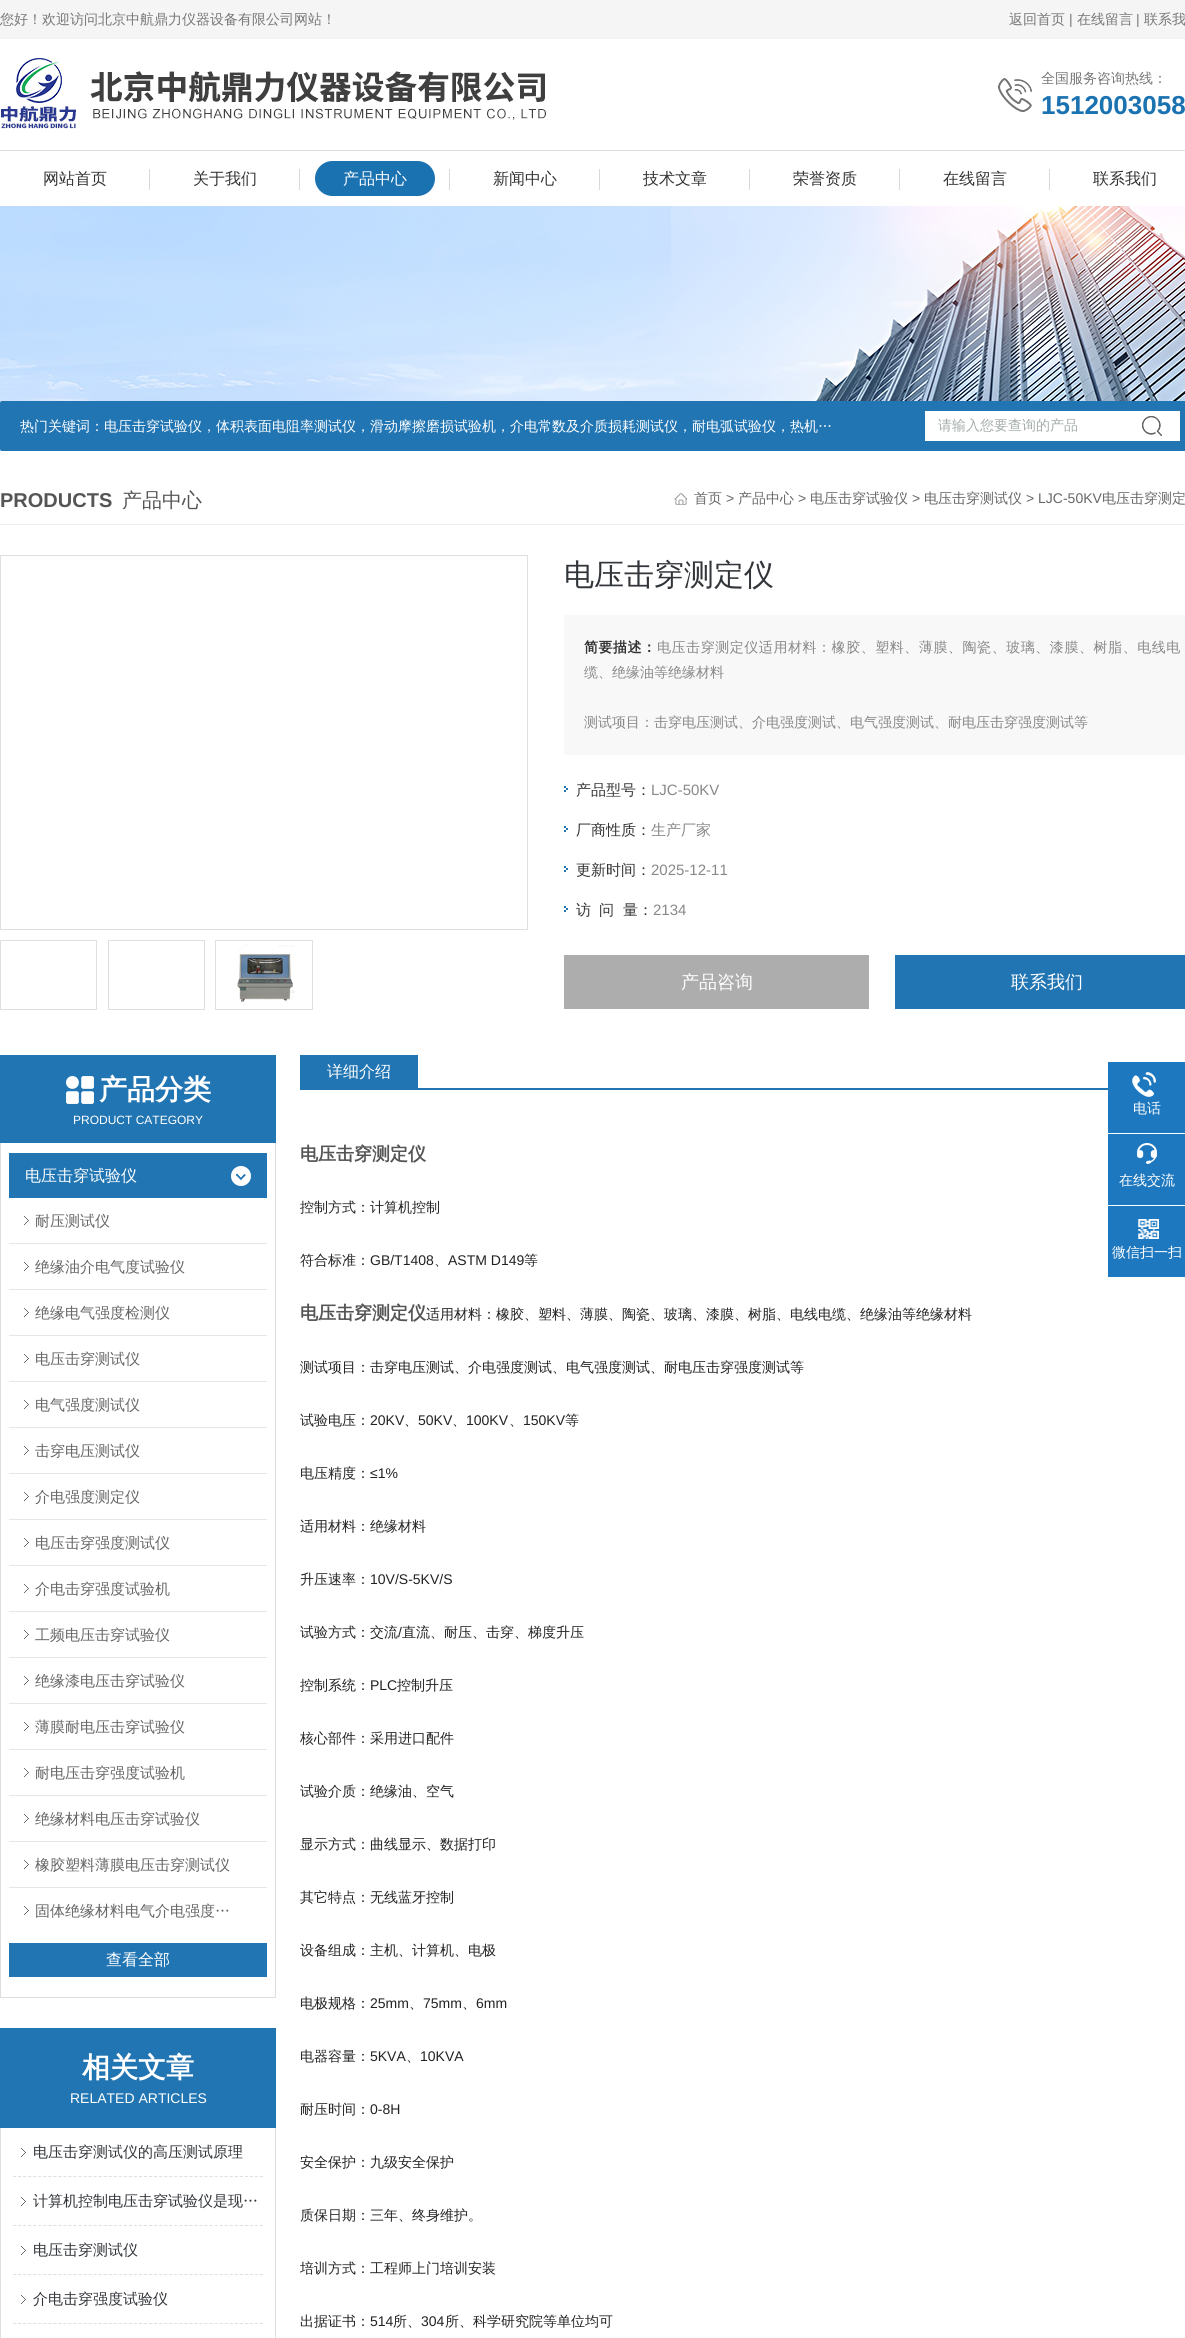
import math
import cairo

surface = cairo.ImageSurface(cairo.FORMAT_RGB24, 1185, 2338)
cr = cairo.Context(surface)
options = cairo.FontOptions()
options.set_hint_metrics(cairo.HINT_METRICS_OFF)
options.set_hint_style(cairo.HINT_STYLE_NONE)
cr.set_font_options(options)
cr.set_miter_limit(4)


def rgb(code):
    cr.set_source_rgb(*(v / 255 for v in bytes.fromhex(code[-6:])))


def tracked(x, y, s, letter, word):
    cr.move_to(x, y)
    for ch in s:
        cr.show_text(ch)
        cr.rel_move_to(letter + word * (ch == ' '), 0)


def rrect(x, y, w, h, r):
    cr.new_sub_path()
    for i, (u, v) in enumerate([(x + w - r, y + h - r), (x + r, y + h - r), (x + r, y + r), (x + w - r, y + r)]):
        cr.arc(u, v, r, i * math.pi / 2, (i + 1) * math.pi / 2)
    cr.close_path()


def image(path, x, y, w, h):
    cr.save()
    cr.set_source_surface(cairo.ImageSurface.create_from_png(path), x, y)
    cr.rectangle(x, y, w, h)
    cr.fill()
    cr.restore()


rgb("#ffffff")
cr.paint()
rgb("#f5f5f5")
cr.rectangle(0, 0, 1185, 38)
cr.fill()
rgb("#f1f1f1")
cr.rectangle(0, 38, 1185, 1)
cr.fill()
image("img/1.png", 1, 58, 545, 76)
image("img/2.png", 998, 78, 34, 34)
for x, y, w, h, color in [
    (0, 150, 1185, 1, "#dedede"),
    (149, 169, 1, 21, "#d9d9d8"),
    (299, 169, 1, 21, "#d9d9d8"),
]:
    rgb(color)
    cr.rectangle(x, y, w, h)
    cr.fill()
rgb("#1a72b1")
rrect(315, 161, 120, 35, 17.5)
cr.fill()
for x, y, w, h, color in [
    (449, 169, 1, 21, "#d9d9d8"),
    (599, 169, 1, 21, "#d9d9d8"),
    (749, 169, 1, 21, "#d9d9d8"),
    (899, 169, 1, 21, "#d9d9d8"),
    (1049, 169, 1, 21, "#d9d9d8"),
]:
    rgb(color)
    cr.rectangle(x, y, w, h)
    cr.fill()
image("img/3.png", 0, 206, 1185, 245)
rgb("#2175b3")
rrect(0, 401, 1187, 50, 2)
cr.fill()
rgb("#ffffff")
cr.rectangle(925, 411, 255, 30)
cr.fill()
image("img/4.png", 1142, 416, 20, 20)
rgb("#efefef")
cr.rectangle(0, 524, 1185, 1)
cr.fill()
image("img/5.png", 674, 493, 13, 12)
cr.rectangle(0.5, 555.5, 527, 374)
rgb("#dfdfdf")
cr.set_line_width(1)
cr.stroke()
cr.rectangle(0.5, 940.5, 96, 69)
cr.stroke()
cr.rectangle(108.5, 940.5, 96, 69)
cr.stroke()
cr.rectangle(215.5, 940.5, 97, 69)
cr.stroke()
image("img/6.png", 237, 944, 58, 58)
rgb("#f8f8f8")
cr.rectangle(564, 615, 621, 140)
cr.fill()
image("img/7.png", 564, 786, 4, 6)
image("img/7.png", 564, 826, 4, 6)
image("img/7.png", 564, 866, 4, 6)
image("img/7.png", 564, 906, 4, 6)
for x, y, w, h, color in [
    (564, 955, 305, 54, "#adadad"),
    (895, 955, 290, 54, "#2175b3"),
    (0, 1055, 276, 88, "#2175b3"),
]:
    rgb(color)
    cr.rectangle(x, y, w, h)
    cr.fill()
image("img/8.png", 66, 1076, 28, 28)
for x, y, w, h, color in [
    (275, 1143, 1, 855, "#dedede"),
    (0, 1997, 276, 1, "#dedede"),
    (0, 1143, 1, 855, "#dedede"),
    (9, 1153, 258, 45, "#2175b3"),
]:
    rgb(color)
    cr.rectangle(x, y, w, h)
    cr.fill()
image("img/9.png", 231, 1166, 20, 20)
image("img/10.png", 24, 1216, 5, 9)
image("img/10.png", 24, 1262, 5, 9)
rgb("#e7e5e5")
cr.rectangle(9, 1243, 258, 1)
cr.fill()
image("img/10.png", 24, 1308, 5, 9)
cr.rectangle(9, 1289, 258, 1)
cr.fill()
image("img/10.png", 24, 1354, 5, 9)
cr.rectangle(9, 1335, 258, 1)
cr.fill()
image("img/10.png", 24, 1400, 5, 9)
cr.rectangle(9, 1381, 258, 1)
cr.fill()
image("img/10.png", 24, 1446, 5, 9)
cr.rectangle(9, 1427, 258, 1)
cr.fill()
image("img/10.png", 24, 1492, 5, 9)
cr.rectangle(9, 1473, 258, 1)
cr.fill()
image("img/10.png", 24, 1538, 5, 9)
cr.rectangle(9, 1519, 258, 1)
cr.fill()
image("img/10.png", 24, 1584, 5, 9)
cr.rectangle(9, 1565, 258, 1)
cr.fill()
image("img/10.png", 24, 1630, 5, 9)
cr.rectangle(9, 1611, 258, 1)
cr.fill()
image("img/10.png", 24, 1676, 5, 9)
cr.rectangle(9, 1657, 258, 1)
cr.fill()
image("img/10.png", 24, 1722, 5, 9)
cr.rectangle(9, 1703, 258, 1)
cr.fill()
image("img/10.png", 24, 1768, 5, 9)
cr.rectangle(9, 1749, 258, 1)
cr.fill()
image("img/10.png", 24, 1814, 5, 9)
cr.rectangle(9, 1795, 258, 1)
cr.fill()
image("img/10.png", 24, 1860, 5, 9)
cr.rectangle(9, 1841, 258, 1)
cr.fill()
image("img/10.png", 24, 1906, 5, 9)
for x, y, w, h, color in [
    (9, 1887, 258, 1, "#e7e5e5"),
    (9, 1943, 258, 34, "#2175b3"),
    (0, 2028, 276, 100, "#2175b3"),
    (275, 2128, 1, 210, "#dfdfdf"),
    (0, 2128, 1, 210, "#dfdfdf"),
]:
    rgb(color)
    cr.rectangle(x, y, w, h)
    cr.fill()
cr.new_path()
cr.move_to(13, 2176.5)
cr.line_to(263, 2176.5)
cr.set_dash([3, 2.04])
cr.stroke()
image("img/10.png", 21, 2148, 5, 9)
cr.new_path()
cr.move_to(13, 2225.5)
cr.line_to(263, 2225.5)
cr.stroke()
image("img/10.png", 21, 2197, 5, 9)
cr.new_path()
cr.move_to(13, 2274.5)
cr.line_to(263, 2274.5)
cr.stroke()
image("img/10.png", 21, 2246, 5, 9)
cr.new_path()
cr.move_to(13, 2323.5)
cr.line_to(263, 2323.5)
cr.stroke()
image("img/10.png", 21, 2295, 5, 9)
for x, y, w, h, color in [
    (300, 1088, 808, 2, "#2175b3"),
    (300, 1055, 118, 33, "#2175b3"),
    (1108, 1062, 77, 71, "#1d78bf"),
]:
    rgb(color)
    cr.rectangle(x, y, w, h)
    cr.fill()
image("img/11.png", 1132, 1072, 24, 25)
cr.rectangle(1108, 1134, 77, 71)
cr.fill()
image("img/12.png", 1137, 1143, 20, 21)
cr.rectangle(1108, 1206, 77, 71)
cr.fill()
image("img/13.png", 1138, 1219, 21, 20)
cr.select_font_face("WenQuanYi Zen Hei Medium")
cr.set_font_size(14)
rgb("#777777")
cr.move_to(0, 24)
cr.show_text("您好！欢迎访问北京中航鼎力仪器设备有限公司网站！")
cr.move_to(1009, 24)
cr.show_text("返回首页")
cr.select_font_face("Liberation Sans")
cr.move_to(1069, 24)
cr.show_text("|")
cr.select_font_face("WenQuanYi Zen Hei Medium")
cr.move_to(1077, 24)
cr.show_text("在线留言")
cr.select_font_face("Liberation Sans")
cr.move_to(1136, 24)
cr.show_text("|")
cr.select_font_face("WenQuanYi Zen Hei Medium")
cr.move_to(1144, 24)
cr.show_text("联系我")
cr.move_to(1041, 83)
cr.show_text("全国服务咨询热线：")
cr.select_font_face("Liberation Sans", cairo.FONT_SLANT_NORMAL, cairo.FONT_WEIGHT_BOLD)
cr.set_font_size(26)
rgb("#1a72b1")
cr.move_to(1041, 114)
cr.show_text("1512003058")
cr.select_font_face("WenQuanYi Zen Hei Medium")
cr.set_font_size(16)
rgb("#333333")
cr.move_to(43, 184)
cr.show_text("网站首页")
cr.move_to(193, 184)
cr.show_text("关于我们")
rgb("#ffffff")
cr.move_to(343, 184)
cr.show_text("产品中心")
rgb("#333333")
for x, y, s in [
    (493, 184, "新闻中心"),
    (643, 184, "技术文章"),
    (793, 184, "荣誉资质"),
    (943, 184, "在线留言"),
    (1093, 184, "联系我们"),
]:
    cr.move_to(x, y)
    cr.show_text(s)
cr.set_font_size(14)
rgb("#ffffff")
cr.move_to(20, 431)
cr.show_text("热门关键词：电压击穿试验仪，体积表面电阻率测试仪，滑动摩擦磨损试验机，介电常数及介质损耗测试仪，耐电弧试验仪，热机…")
rgb("#a4ada9")
cr.move_to(938, 430)
cr.show_text("请输入您要查询的产品")
cr.select_font_face("Liberation Sans", cairo.FONT_SLANT_NORMAL, cairo.FONT_WEIGHT_BOLD)
cr.set_font_size(20)
rgb("#555555")
cr.move_to(0, 507)
cr.show_text("PRODUCTS")
cr.select_font_face("WenQuanYi Zen Hei Medium")
cr.move_to(122, 507)
cr.show_text("产品中心")
cr.set_font_size(14)
rgb("#666666")
cr.move_to(694, 503)
cr.show_text("首页")
cr.select_font_face("Liberation Sans")
cr.move_to(726, 503)
cr.show_text(">")
cr.select_font_face("WenQuanYi Zen Hei Medium")
cr.move_to(738, 503)
cr.show_text("产品中心")
cr.select_font_face("Liberation Sans")
cr.move_to(798, 503)
cr.show_text(">")
cr.select_font_face("WenQuanYi Zen Hei Medium")
cr.move_to(810, 503)
cr.show_text("电压击穿试验仪")
cr.select_font_face("Liberation Sans")
cr.move_to(912, 503)
cr.show_text(">")
cr.select_font_face("WenQuanYi Zen Hei Medium")
cr.move_to(924, 503)
cr.show_text("电压击穿测试仪")
cr.select_font_face("Liberation Sans")
cr.move_to(1026, 503)
cr.show_text("> LJC-50KV")
cr.select_font_face("WenQuanYi Zen Hei Medium")
cr.move_to(1102, 503)
cr.show_text("电压击穿测定")
cr.set_font_size(30)
rgb("#32353a")
cr.move_to(564, 585)
cr.show_text("电压击穿测定仪")
cr.select_font_face("WenQuanYi Zen Hei", cairo.FONT_SLANT_NORMAL, cairo.FONT_WEIGHT_BOLD)
cr.set_font_size(14)
rgb("#333333")
tracked(584, 652, "简要描述：", 0.5, 0)
cr.select_font_face("WenQuanYi Zen Hei Medium")
rgb("#888888")
tracked(657, 652, "电压击穿测定仪适用材料：橡胶、塑料、薄膜、陶瓷、玻璃、漆膜、树脂、电线电", 0.55, 0)
cr.move_to(584, 677)
cr.show_text("缆、绝缘油等绝缘材料")
cr.move_to(584, 727)
cr.show_text("测试项目：击穿电压测试、介电强度测试、电气强度测试、耐电压击穿强度测试等")
cr.set_font_size(15)
rgb("#333333")
cr.move_to(576, 795)
cr.show_text("产品型号：")
cr.select_font_face("Liberation Sans")
rgb("#888888")
cr.move_to(651, 795)
cr.show_text("LJC-50KV")
cr.select_font_face("WenQuanYi Zen Hei Medium")
rgb("#333333")
cr.move_to(576, 835)
cr.show_text("厂商性质：")
rgb("#888888")
cr.move_to(651, 835)
cr.show_text("生产厂家")
rgb("#333333")
cr.move_to(576, 875)
cr.show_text("更新时间：")
cr.select_font_face("Liberation Sans")
rgb("#888888")
cr.move_to(651, 875)
cr.show_text("2025-12-11")
cr.select_font_face("WenQuanYi Zen Hei Medium")
rgb("#333333")
for x, y, s in [
    (576, 915, "访"),
    (599, 915, "问"),
    (623, 915, "量："),
]:
    cr.move_to(x, y)
    cr.show_text(s)
cr.select_font_face("Liberation Sans")
rgb("#888888")
cr.move_to(653, 915)
cr.show_text("2134")
cr.select_font_face("WenQuanYi Zen Hei Medium")
cr.set_font_size(18)
rgb("#ffffff")
cr.move_to(681, 988)
cr.show_text("产品咨询")
cr.move_to(1011, 988)
cr.show_text("联系我们")
cr.select_font_face("WenQuanYi Zen Hei", cairo.FONT_SLANT_NORMAL, cairo.FONT_WEIGHT_BOLD)
cr.set_font_size(28)
cr.move_to(99, 1099)
cr.show_text("产品分类")
cr.select_font_face("Liberation Sans")
cr.set_font_size(12)
cr.move_to(73, 1124)
cr.show_text("PRODUCT CATEGORY")
cr.select_font_face("WenQuanYi Zen Hei Medium")
cr.set_font_size(16)
cr.move_to(25, 1181)
cr.show_text("电压击穿试验仪")
cr.set_font_size(15)
rgb("#666666")
for x, y, s in [
    (35, 1226, "耐压测试仪"),
    (35, 1272, "绝缘油介电气度试验仪"),
    (35, 1318, "绝缘电气强度检测仪"),
    (35, 1364, "电压击穿测试仪"),
    (35, 1410, "电气强度测试仪"),
    (35, 1456, "击穿电压测试仪"),
    (35, 1502, "介电强度测定仪"),
    (35, 1548, "电压击穿强度测试仪"),
    (35, 1594, "介电击穿强度试验机"),
    (35, 1640, "工频电压击穿试验仪"),
    (35, 1686, "绝缘漆电压击穿试验仪"),
    (35, 1732, "薄膜耐电压击穿试验仪"),
    (35, 1778, "耐电压击穿强度试验机"),
    (35, 1824, "绝缘材料电压击穿试验仪"),
    (35, 1870, "橡胶塑料薄膜电压击穿测试仪"),
    (35, 1916, "固体绝缘材料电气介电强度…"),
]:
    cr.move_to(x, y)
    cr.show_text(s)
cr.set_font_size(16)
rgb("#ffffff")
cr.move_to(106, 1965)
cr.show_text("查看全部")
cr.select_font_face("WenQuanYi Zen Hei", cairo.FONT_SLANT_NORMAL, cairo.FONT_WEIGHT_BOLD)
cr.set_font_size(28)
cr.move_to(82, 2077)
cr.show_text("相关文章")
cr.select_font_face("Liberation Sans")
cr.set_font_size(14)
cr.move_to(70, 2103)
cr.show_text("RELATED ARTICLES")
cr.select_font_face("WenQuanYi Zen Hei Medium")
cr.set_font_size(15)
rgb("#32353a")
for x, y, s in [
    (33, 2157, "电压击穿测试仪的高压测试原理"),
    (33, 2206, "计算机控制电压击穿试验仪是现…"),
    (33, 2255, "电压击穿测试仪"),
    (33, 2304, "介电击穿强度试验仪"),
]:
    cr.move_to(x, y)
    cr.show_text(s)
cr.set_font_size(16)
rgb("#ffffff")
cr.move_to(327, 1077)
cr.show_text("详细介绍")
cr.select_font_face("WenQuanYi Zen Hei", cairo.FONT_SLANT_NORMAL, cairo.FONT_WEIGHT_BOLD)
cr.set_font_size(18)
rgb("#555555")
cr.move_to(300, 1160)
cr.show_text("电压击穿测定仪")
cr.select_font_face("WenQuanYi Zen Hei Medium")
cr.set_font_size(14)
rgb("#222222")
cr.move_to(300, 1212)
cr.show_text("控制方式：计算机控制")
cr.move_to(300, 1265)
cr.show_text("符合标准：")
cr.select_font_face("Liberation Sans")
cr.move_to(370, 1265)
cr.show_text("GB/T1408")
cr.select_font_face("WenQuanYi Zen Hei Medium")
cr.move_to(434, 1265)
cr.show_text("、")
cr.select_font_face("Liberation Sans")
cr.move_to(448, 1265)
cr.show_text("ASTM D149")
cr.select_font_face("WenQuanYi Zen Hei Medium")
cr.move_to(524, 1265)
cr.show_text("等")
cr.select_font_face("WenQuanYi Zen Hei", cairo.FONT_SLANT_NORMAL, cairo.FONT_WEIGHT_BOLD)
cr.set_font_size(18)
rgb("#555555")
cr.move_to(300, 1319)
cr.show_text("电压击穿测定仪")
cr.select_font_face("WenQuanYi Zen Hei Medium")
cr.set_font_size(14)
rgb("#222222")
for x, y, s in [
    (426, 1319, "适用材料：橡胶、塑料、薄膜、陶瓷、玻璃、漆膜、树脂、电线电缆、绝缘油等绝缘材料"),
    (300, 1372, "测试项目：击穿电压测试、介电强度测试、电气强度测试、耐电压击穿强度测试等"),
    (300, 1425, "试验电压："),
]:
    cr.move_to(x, y)
    cr.show_text(s)
cr.select_font_face("Liberation Sans")
cr.move_to(370, 1425)
cr.show_text("20KV")
cr.select_font_face("WenQuanYi Zen Hei Medium")
cr.move_to(404, 1425)
cr.show_text("、")
cr.select_font_face("Liberation Sans")
cr.move_to(418, 1425)
cr.show_text("50KV")
cr.select_font_face("WenQuanYi Zen Hei Medium")
cr.move_to(452, 1425)
cr.show_text("、")
cr.select_font_face("Liberation Sans")
cr.move_to(466, 1425)
cr.show_text("100KV")
cr.select_font_face("WenQuanYi Zen Hei Medium")
cr.move_to(509, 1425)
cr.show_text("、")
cr.select_font_face("Liberation Sans")
cr.move_to(523, 1425)
cr.show_text("150KV")
cr.select_font_face("WenQuanYi Zen Hei Medium")
cr.move_to(565, 1425)
cr.show_text("等")
cr.move_to(300, 1478)
cr.show_text("电压精度：")
cr.select_font_face("Liberation Sans")
cr.move_to(370, 1478)
cr.show_text("≤1%")
cr.select_font_face("WenQuanYi Zen Hei Medium")
cr.move_to(300, 1531)
cr.show_text("适用材料：绝缘材料")
cr.move_to(300, 1584)
cr.show_text("升压速率：")
cr.select_font_face("Liberation Sans")
cr.move_to(370, 1584)
cr.show_text("10V/S-5KV/S")
cr.select_font_face("WenQuanYi Zen Hei Medium")
cr.move_to(300, 1637)
cr.show_text("试验方式：交流")
cr.select_font_face("Liberation Sans")
cr.move_to(398, 1637)
cr.show_text("/")
cr.select_font_face("WenQuanYi Zen Hei Medium")
cr.move_to(402, 1637)
cr.show_text("直流、耐压、击穿、梯度升压")
cr.move_to(300, 1690)
cr.show_text("控制系统：")
cr.select_font_face("Liberation Sans")
cr.move_to(370, 1690)
cr.show_text("PLC")
cr.select_font_face("WenQuanYi Zen Hei Medium")
for x, y, s in [
    (397, 1690, "控制升压"),
    (300, 1743, "核心部件：采用进口配件"),
    (300, 1796, "试验介质：绝缘油、空气"),
    (300, 1849, "显示方式：曲线显示、数据打印"),
    (300, 1902, "其它特点：无线蓝牙控制"),
    (300, 1955, "设备组成：主机、计算机、电极"),
    (300, 2008, "电极规格："),
]:
    cr.move_to(x, y)
    cr.show_text(s)
cr.select_font_face("Liberation Sans")
cr.move_to(370, 2008)
cr.show_text("25mm")
cr.select_font_face("WenQuanYi Zen Hei Medium")
cr.move_to(409, 2008)
cr.show_text("、")
cr.select_font_face("Liberation Sans")
cr.move_to(423, 2008)
cr.show_text("75mm")
cr.select_font_face("WenQuanYi Zen Hei Medium")
cr.move_to(462, 2008)
cr.show_text("、")
cr.select_font_face("Liberation Sans")
cr.move_to(476, 2008)
cr.show_text("6mm")
cr.select_font_face("WenQuanYi Zen Hei Medium")
cr.move_to(300, 2061)
cr.show_text("电器容量：")
cr.select_font_face("Liberation Sans")
cr.move_to(370, 2061)
cr.show_text("5KVA")
cr.select_font_face("WenQuanYi Zen Hei Medium")
cr.move_to(406, 2061)
cr.show_text("、")
cr.select_font_face("Liberation Sans")
cr.move_to(420, 2061)
cr.show_text("10KVA")
cr.select_font_face("WenQuanYi Zen Hei Medium")
cr.move_to(300, 2114)
cr.show_text("耐压时间：")
cr.select_font_face("Liberation Sans")
cr.move_to(370, 2114)
cr.show_text("0-8H")
cr.select_font_face("WenQuanYi Zen Hei Medium")
for x, y, s in [
    (300, 2167, "安全保护：九级安全保护"),
    (300, 2220, "质保日期：三年、终身维护。"),
    (300, 2273, "培训方式：工程师上门培训安装"),
    (300, 2326, "出据证书："),
]:
    cr.move_to(x, y)
    cr.show_text(s)
cr.select_font_face("Liberation Sans")
cr.move_to(370, 2326)
cr.show_text("514")
cr.select_font_face("WenQuanYi Zen Hei Medium")
cr.move_to(393, 2326)
cr.show_text("所、")
cr.select_font_face("Liberation Sans")
cr.move_to(421, 2326)
cr.show_text("304")
cr.select_font_face("WenQuanYi Zen Hei Medium")
cr.move_to(445, 2326)
cr.show_text("所、科学研究院等单位均可")
rgb("#ffffff")
for x, y, s in [
    (1133, 1113, "电话"),
    (1119, 1185, "在线交流"),
    (1112, 1257, "微信扫一扫"),
]:
    cr.move_to(x, y)
    cr.show_text(s)
surface.write_to_png("page.png")
